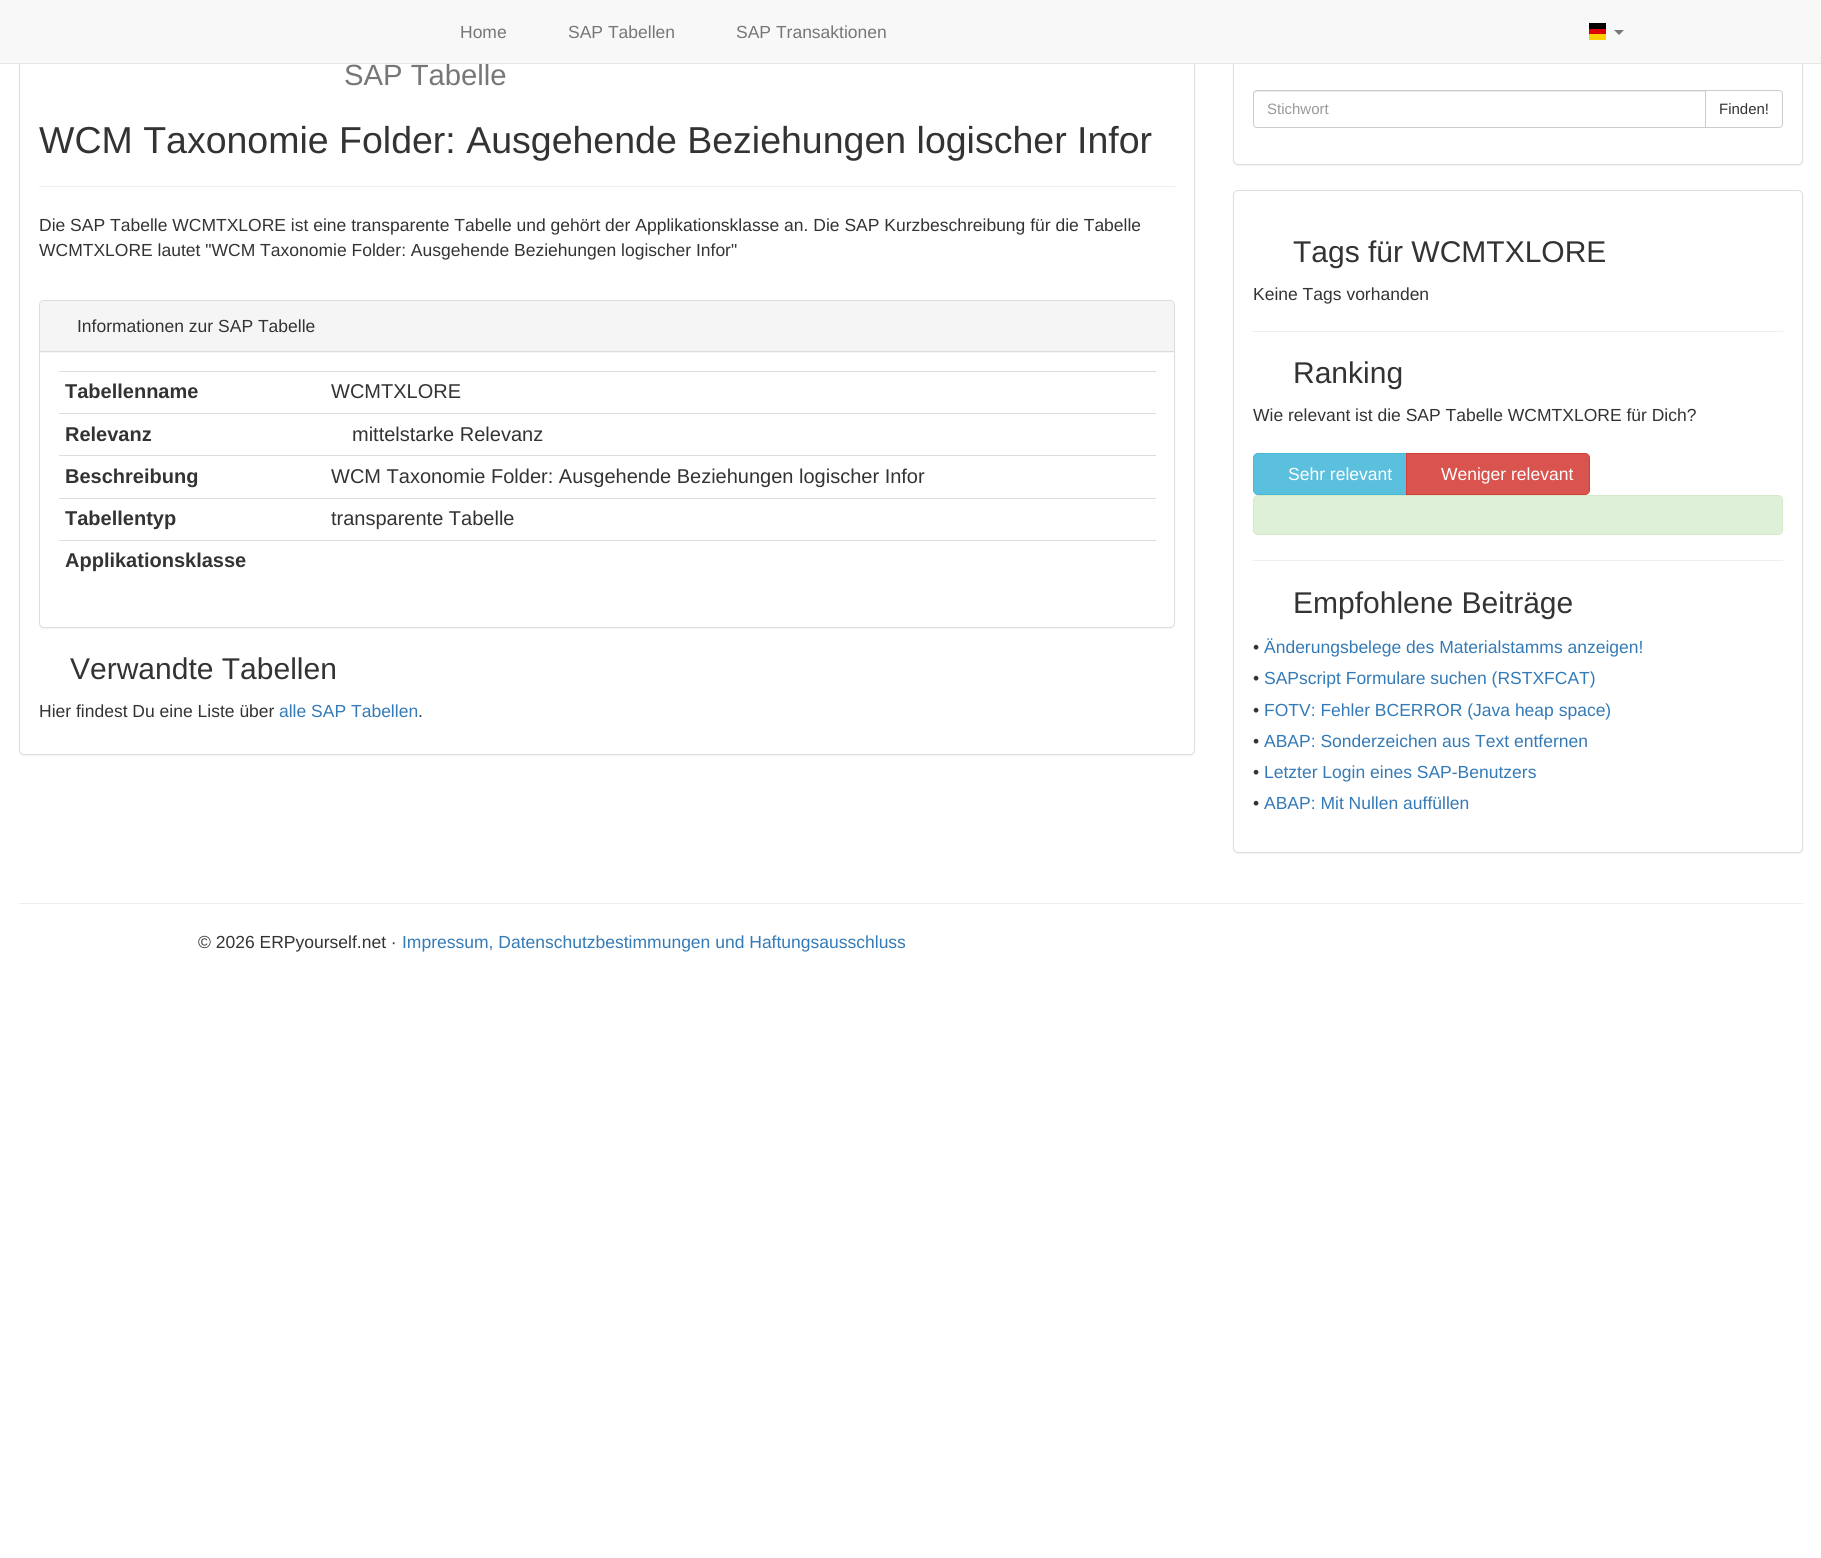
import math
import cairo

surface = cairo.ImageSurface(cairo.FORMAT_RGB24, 1821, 1558)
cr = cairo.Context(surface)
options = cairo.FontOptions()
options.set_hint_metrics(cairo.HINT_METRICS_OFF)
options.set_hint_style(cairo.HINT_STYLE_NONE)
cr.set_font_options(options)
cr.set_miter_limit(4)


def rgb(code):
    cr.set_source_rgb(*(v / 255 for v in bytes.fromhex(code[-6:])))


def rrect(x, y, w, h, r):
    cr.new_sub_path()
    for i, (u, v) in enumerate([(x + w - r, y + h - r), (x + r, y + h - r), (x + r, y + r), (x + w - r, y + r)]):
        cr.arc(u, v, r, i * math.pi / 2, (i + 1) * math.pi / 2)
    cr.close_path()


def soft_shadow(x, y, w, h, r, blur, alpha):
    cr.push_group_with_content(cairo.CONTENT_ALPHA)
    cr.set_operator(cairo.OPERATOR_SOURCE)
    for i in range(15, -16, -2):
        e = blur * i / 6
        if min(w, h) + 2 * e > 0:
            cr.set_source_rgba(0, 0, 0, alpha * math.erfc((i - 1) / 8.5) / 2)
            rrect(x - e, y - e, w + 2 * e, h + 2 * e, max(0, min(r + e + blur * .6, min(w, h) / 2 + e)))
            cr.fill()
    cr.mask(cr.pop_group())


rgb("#ffffff")
cr.paint()
rgb("#000000")
soft_shadow(19, 1, 1176, 755, 5, 0.5, 0.05)
rgb("#ffffff")
rrect(19.5, 0.5, 1175, 754, 4.5)
cr.fill_preserve()
rgb("#dddddd")
cr.set_line_width(1)
cr.stroke()
rgb("#000000")
soft_shadow(1233, 1, 570, 165, 5, 0.5, 0.05)
rgb("#ffffff")
rrect(1233.5, 0.5, 569, 164, 4.5)
cr.fill_preserve()
rgb("#dddddd")
cr.stroke()
for x, y, w, h, color in [
    (0, 0, 1821, 63, "#f8f8f8"),
    (1589, 34, 17, 6, "#ffce00"),
    (1589, 23, 17, 6, "#000000"),
    (1589, 29, 17, 5, "#dd0000"),
]:
    rgb(color)
    cr.rectangle(x, y, w, h)
    cr.fill()
rgb("#777777")
cr.new_path()
cr.move_to(1614, 30)
cr.line_to(1624, 30)
cr.line_to(1619, 35)
cr.close_path()
cr.fill()
rgb("#eeeeee")
cr.rectangle(39, 186, 1136, 1)
cr.fill()
rgb("#000000")
soft_shadow(39, 301, 1136, 328, 5, 0.5, 0.05)
rgb("#ffffff")
rrect(39.5, 300.5, 1135, 327, 4.5)
cr.fill_preserve()
rgb("#dddddd")
cr.stroke()
rgb("#f5f5f5")
cr.new_path()
cr.move_to(44, 301)
cr.line_to(1170, 301)
cr.curve_to(1172, 301, 1174, 303, 1174, 305)
cr.line_to(1174, 353)
cr.line_to(40, 353)
cr.line_to(40, 305)
cr.curve_to(40, 303, 42, 301, 44, 301)
cr.close_path()
cr.fill()
for x, y, w, h, color in [
    (40, 351, 1134, 1, "#dddddd"),
    (59, 371, 1097, 1, "#dddddd"),
    (59, 413, 1097, 1, "#dddddd"),
    (59, 455, 1097, 1, "#dddddd"),
    (59, 498, 1097, 1, "#dddddd"),
    (59, 540, 1097, 1, "#dddddd"),
]:
    rgb(color)
    cr.rectangle(x, y, w, h)
    cr.fill()
rgb("#ececec")
cr.new_path()
cr.move_to(1256, 92)
cr.line_to(1705, 92)
cr.line_to(1705, 91)
cr.line_to(1256, 91)
cr.line_to(1254, 92)
cr.line_to(1254, 95)
cr.curve_to(1254, 94, 1255, 92, 1256, 92)
cr.close_path()
cr.fill()
cr.new_path()
cr.move_to(1257, 90.5)
cr.line_to(1705.5, 90.5)
cr.line_to(1705.5, 127.5)
cr.line_to(1257, 127.5)
cr.curve_to(1255, 127.5, 1253.5, 126, 1253.5, 124)
cr.line_to(1253.5, 94)
cr.curve_to(1253.5, 92, 1255, 90.5, 1257, 90.5)
cr.close_path()
rgb("#cccccc")
cr.stroke()
rgb("#ffffff")
cr.new_path()
cr.move_to(1705.5, 90.5)
cr.line_to(1779, 90.5)
cr.curve_to(1781, 90.5, 1782.5, 92, 1782.5, 94)
cr.line_to(1782.5, 124)
cr.curve_to(1782.5, 126, 1781, 127.5, 1779, 127.5)
cr.line_to(1705.5, 127.5)
cr.close_path()
cr.fill_preserve()
rgb("#cccccc")
cr.stroke()
rgb("#000000")
soft_shadow(1233, 191, 570, 663, 5, 0.5, 0.05)
rgb("#ffffff")
rrect(1233.5, 190.5, 569, 662, 4.5)
cr.fill_preserve()
rgb("#dddddd")
cr.stroke()
rgb("#eeeeee")
cr.rectangle(1253, 331, 530, 1)
cr.fill()
rgb("#5bc0de")
cr.new_path()
cr.move_to(1258, 453.5)
cr.line_to(1407.5, 453.5)
cr.line_to(1407.5, 494.5)
cr.line_to(1258, 494.5)
cr.curve_to(1255.5, 494.5, 1253.5, 492.5, 1253.5, 490)
cr.line_to(1253.5, 458)
cr.curve_to(1253.5, 455.5, 1255.5, 453.5, 1258, 453.5)
cr.close_path()
cr.fill_preserve()
rgb("#46b8da")
cr.stroke()
rgb("#d9534f")
cr.new_path()
cr.move_to(1406.5, 453.5)
cr.line_to(1585, 453.5)
cr.curve_to(1587.5, 453.5, 1589.5, 455.5, 1589.5, 458)
cr.line_to(1589.5, 490)
cr.curve_to(1589.5, 492.5, 1587.5, 494.5, 1585, 494.5)
cr.line_to(1406.5, 494.5)
cr.close_path()
cr.fill_preserve()
rgb("#d43f3a")
cr.stroke()
rgb("#dff0d8")
rrect(1253.5, 495.5, 529, 39, 4.5)
cr.fill_preserve()
rgb("#d6e9c6")
cr.stroke()
rgb("#eeeeee")
cr.rectangle(1253, 560, 530, 1)
cr.fill()
cr.rectangle(19, 903, 1784, 1)
cr.fill()
cr.select_font_face("Liberation Sans")
cr.set_font_size(17.5)
rgb("#777777")
for x, y, s in [
    (460, 38, "Home"),
    (568, 38, "SAP Tabellen"),
    (736, 38, "SAP Transaktionen"),
]:
    cr.move_to(x, y)
    cr.show_text(s)
cr.set_font_size(29.25)
cr.move_to(344, 85)
cr.show_text("SAP Tabelle")
rgb("#e7e7e7")
cr.rectangle(0, 63, 1821, 1)
cr.fill()
cr.set_font_size(37.5)
rgb("#333333")
cr.move_to(39, 153)
cr.show_text("WCM Taxonomie Folder: Ausgehende Beziehungen logischer Infor")
cr.set_font_size(17.5)
for x, y, s in [
    (39, 231, "Die SAP Tabelle WCMTXLORE ist eine transparente Tabelle und gehört der Applikationsklasse an. Die SAP Kurzbeschreibung für die Tabelle"),
    (39, 256, "WCMTXLORE lautet \"WCM Taxonomie Folder: Ausgehende Beziehungen logischer Infor\""),
    (77, 332, "Informationen zur SAP Tabelle"),
]:
    cr.move_to(x, y)
    cr.show_text(s)
cr.select_font_face("Liberation Sans", cairo.FONT_SLANT_NORMAL, cairo.FONT_WEIGHT_BOLD)
cr.set_font_size(20)
cr.move_to(65, 398)
cr.show_text("Tabellenname")
cr.select_font_face("Liberation Sans")
cr.move_to(331, 398)
cr.show_text("WCMTXLORE")
cr.select_font_face("Liberation Sans", cairo.FONT_SLANT_NORMAL, cairo.FONT_WEIGHT_BOLD)
cr.move_to(65, 441)
cr.show_text("Relevanz")
cr.select_font_face("Liberation Sans")
cr.move_to(352, 441)
cr.show_text("mittelstarke Relevanz")
cr.select_font_face("Liberation Sans", cairo.FONT_SLANT_NORMAL, cairo.FONT_WEIGHT_BOLD)
cr.move_to(65, 483)
cr.show_text("Beschreibung")
cr.select_font_face("Liberation Sans")
cr.move_to(331, 483)
cr.show_text("WCM Taxonomie Folder: Ausgehende Beziehungen logischer Infor")
cr.select_font_face("Liberation Sans", cairo.FONT_SLANT_NORMAL, cairo.FONT_WEIGHT_BOLD)
cr.move_to(65, 525)
cr.show_text("Tabellentyp")
cr.select_font_face("Liberation Sans")
cr.move_to(331, 525)
cr.show_text("transparente Tabelle")
cr.select_font_face("Liberation Sans", cairo.FONT_SLANT_NORMAL, cairo.FONT_WEIGHT_BOLD)
cr.move_to(65, 567)
cr.show_text("Applikationsklasse")
cr.select_font_face("Liberation Sans")
cr.set_font_size(30)
cr.move_to(70, 679)
cr.show_text("Verwandte Tabellen")
cr.set_font_size(17.5)
cr.move_to(39, 717)
cr.show_text("Hier findest Du eine Liste über")
rgb("#337ab7")
cr.move_to(279, 717)
cr.show_text("alle SAP Tabellen")
rgb("#333333")
cr.move_to(418, 717)
cr.show_text(".")
cr.set_font_size(15)
rgb("#999999")
cr.move_to(1267, 114)
cr.show_text("Stichwort")
rgb("#333333")
cr.move_to(1719, 114)
cr.show_text("Finden!")
cr.set_font_size(30)
cr.move_to(1293, 262)
cr.show_text("Tags für WCMTXLORE")
cr.set_font_size(17.5)
cr.move_to(1253, 300)
cr.show_text("Keine Tags vorhanden")
cr.set_font_size(30)
cr.move_to(1293, 383)
cr.show_text("Ranking")
cr.set_font_size(17.5)
cr.move_to(1253, 421)
cr.show_text("Wie relevant ist die SAP Tabelle WCMTXLORE für Dich?")
rgb("#ffffff")
cr.move_to(1288, 480)
cr.show_text("Sehr relevant")
cr.move_to(1441, 480)
cr.show_text("Weniger relevant")
cr.set_font_size(30)
rgb("#333333")
cr.move_to(1293, 613)
cr.show_text("Empfohlene Beiträge")
cr.set_font_size(17.5)
cr.move_to(1253, 653)
cr.show_text("•")
rgb("#337ab7")
cr.move_to(1264, 653)
cr.show_text("Änderungsbelege des Materialstamms anzeigen!")
rgb("#333333")
cr.move_to(1253, 684)
cr.show_text("•")
rgb("#337ab7")
cr.move_to(1264, 684)
cr.show_text("SAPscript Formulare suchen (RSTXFCAT)")
rgb("#333333")
cr.move_to(1253, 716)
cr.show_text("•")
rgb("#337ab7")
cr.move_to(1264, 716)
cr.show_text("FOTV: Fehler BCERROR (Java heap space)")
rgb("#333333")
cr.move_to(1253, 747)
cr.show_text("•")
rgb("#337ab7")
cr.move_to(1264, 747)
cr.show_text("ABAP: Sonderzeichen aus Text entfernen")
rgb("#333333")
cr.move_to(1253, 778)
cr.show_text("•")
rgb("#337ab7")
cr.move_to(1264, 778)
cr.show_text("Letzter Login eines SAP-Benutzers")
rgb("#333333")
cr.move_to(1253, 809)
cr.show_text("•")
rgb("#337ab7")
cr.move_to(1264, 809)
cr.show_text("ABAP: Mit Nullen auffüllen")
rgb("#333333")
cr.move_to(198, 948)
cr.show_text("© 2026 ERPyourself.net ·")
rgb("#337ab7")
cr.move_to(402, 948)
cr.show_text("Impressum, Datenschutzbestimmungen und Haftungsausschluss")
surface.write_to_png("page.png")
